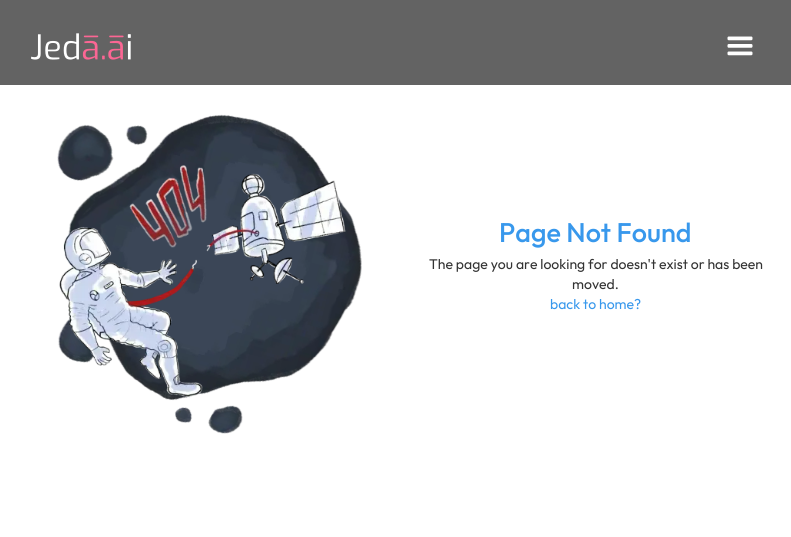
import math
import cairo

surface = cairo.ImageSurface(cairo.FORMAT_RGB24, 791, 537)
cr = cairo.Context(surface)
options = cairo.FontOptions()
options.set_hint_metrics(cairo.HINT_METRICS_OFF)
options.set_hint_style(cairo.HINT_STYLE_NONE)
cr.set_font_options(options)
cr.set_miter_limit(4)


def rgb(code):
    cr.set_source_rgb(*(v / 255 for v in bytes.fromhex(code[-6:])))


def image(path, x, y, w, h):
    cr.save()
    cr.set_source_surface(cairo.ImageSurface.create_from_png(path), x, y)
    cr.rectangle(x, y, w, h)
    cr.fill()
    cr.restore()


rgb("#ffffff")
cr.paint()
rgb("#636363")
cr.rectangle(0, 0, 791, 85)
cr.fill()
image("img/1.png", 31, 33, 100, 27)
image("img/2.png", 727, 36, 26, 20)
image("img/3.png", 57, 114, 305, 320)
image("img/4.png", 59, 165, 287, 232)
cr.select_font_face("Outfit Medium")
cr.set_font_size(27)
rgb("#3898ec")
cr.move_to(499, 242)
cr.show_text("Page Not Found")
cr.select_font_face("Outfit")
cr.set_font_size(14)
rgb("#333333")
cr.move_to(429, 269)
cr.show_text("The page you are looking for doesn't exist or has been")
cr.move_to(572, 289)
cr.show_text("moved.")
rgb("#3898ec")
cr.move_to(550, 309)
cr.show_text("back to home?")
surface.write_to_png("page.png")
